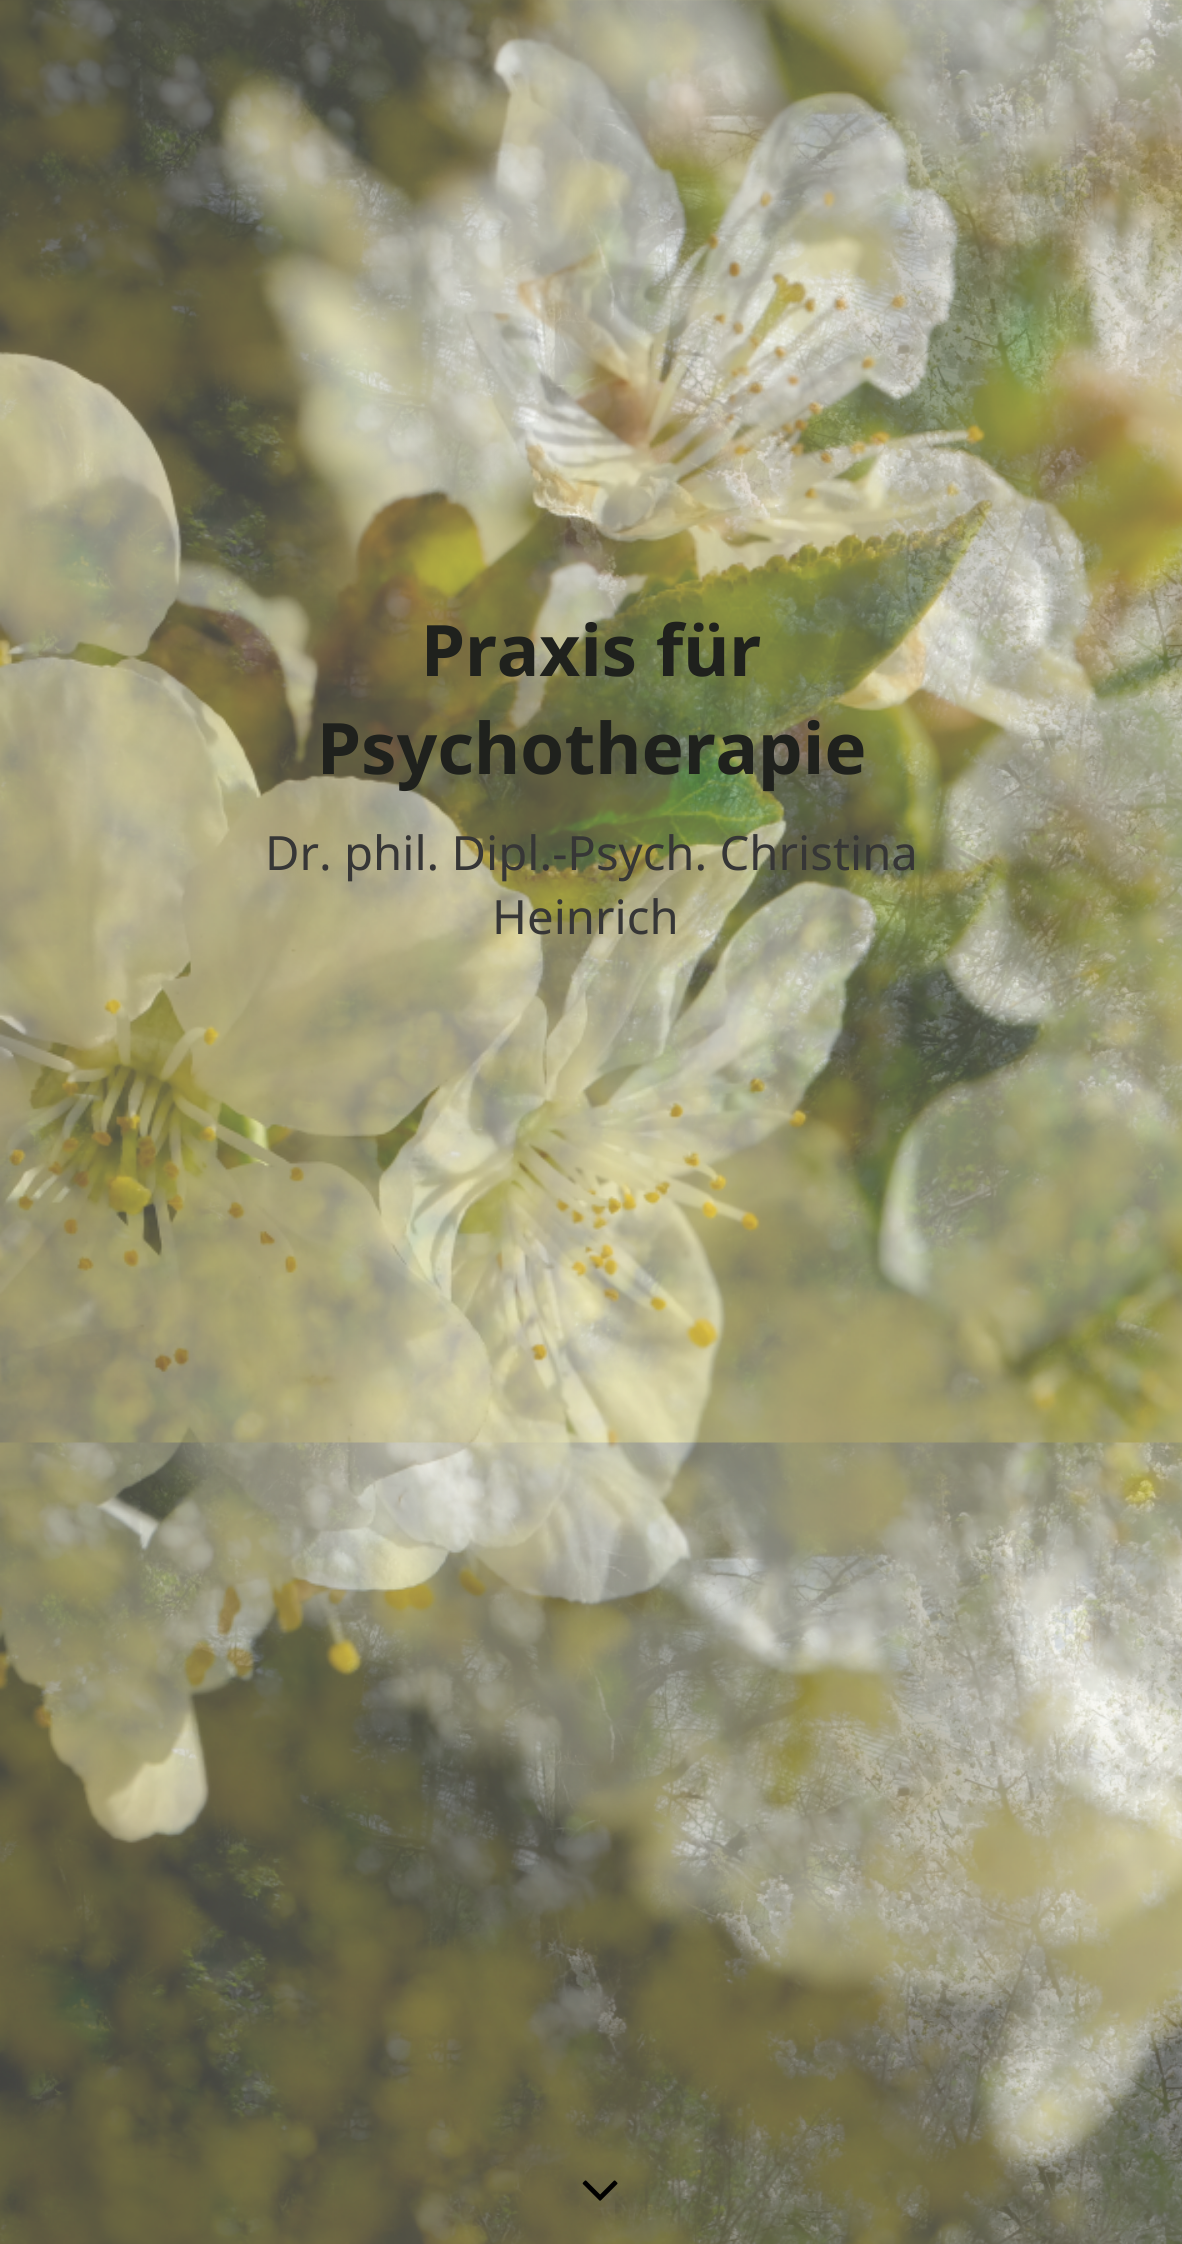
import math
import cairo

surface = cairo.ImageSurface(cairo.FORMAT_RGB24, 1182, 2244)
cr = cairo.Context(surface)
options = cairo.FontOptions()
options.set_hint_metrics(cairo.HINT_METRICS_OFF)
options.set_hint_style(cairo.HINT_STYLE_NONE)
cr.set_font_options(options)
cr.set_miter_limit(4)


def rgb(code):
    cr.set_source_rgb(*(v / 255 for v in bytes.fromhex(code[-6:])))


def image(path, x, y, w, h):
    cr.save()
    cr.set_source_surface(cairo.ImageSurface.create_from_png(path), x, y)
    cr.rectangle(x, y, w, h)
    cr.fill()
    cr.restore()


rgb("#ffffff")
cr.paint()
image("img/1.png", 0, 0, 1182, 2244)
image("img/2.png", 0, 0, 1182, 2244)
image("img/3.png", 582, 2180, 36, 21)
cr.select_font_face("Noto Sans", cairo.FONT_SLANT_NORMAL, cairo.FONT_WEIGHT_BOLD)
cr.set_font_size(71)
rgb("#1f211d")
cr.move_to(421, 676)
cr.show_text("Praxis für")
cr.move_to(317, 774)
cr.show_text("Psychotherapie")
cr.select_font_face("Noto Sans")
cr.set_font_size(47.25)
rgb("#363636")
cr.move_to(265, 870)
cr.show_text("Dr. phil. Dipl.-Psych. Christina")
cr.move_to(492, 934)
cr.show_text("Heinrich")
surface.write_to_png("page.png")
